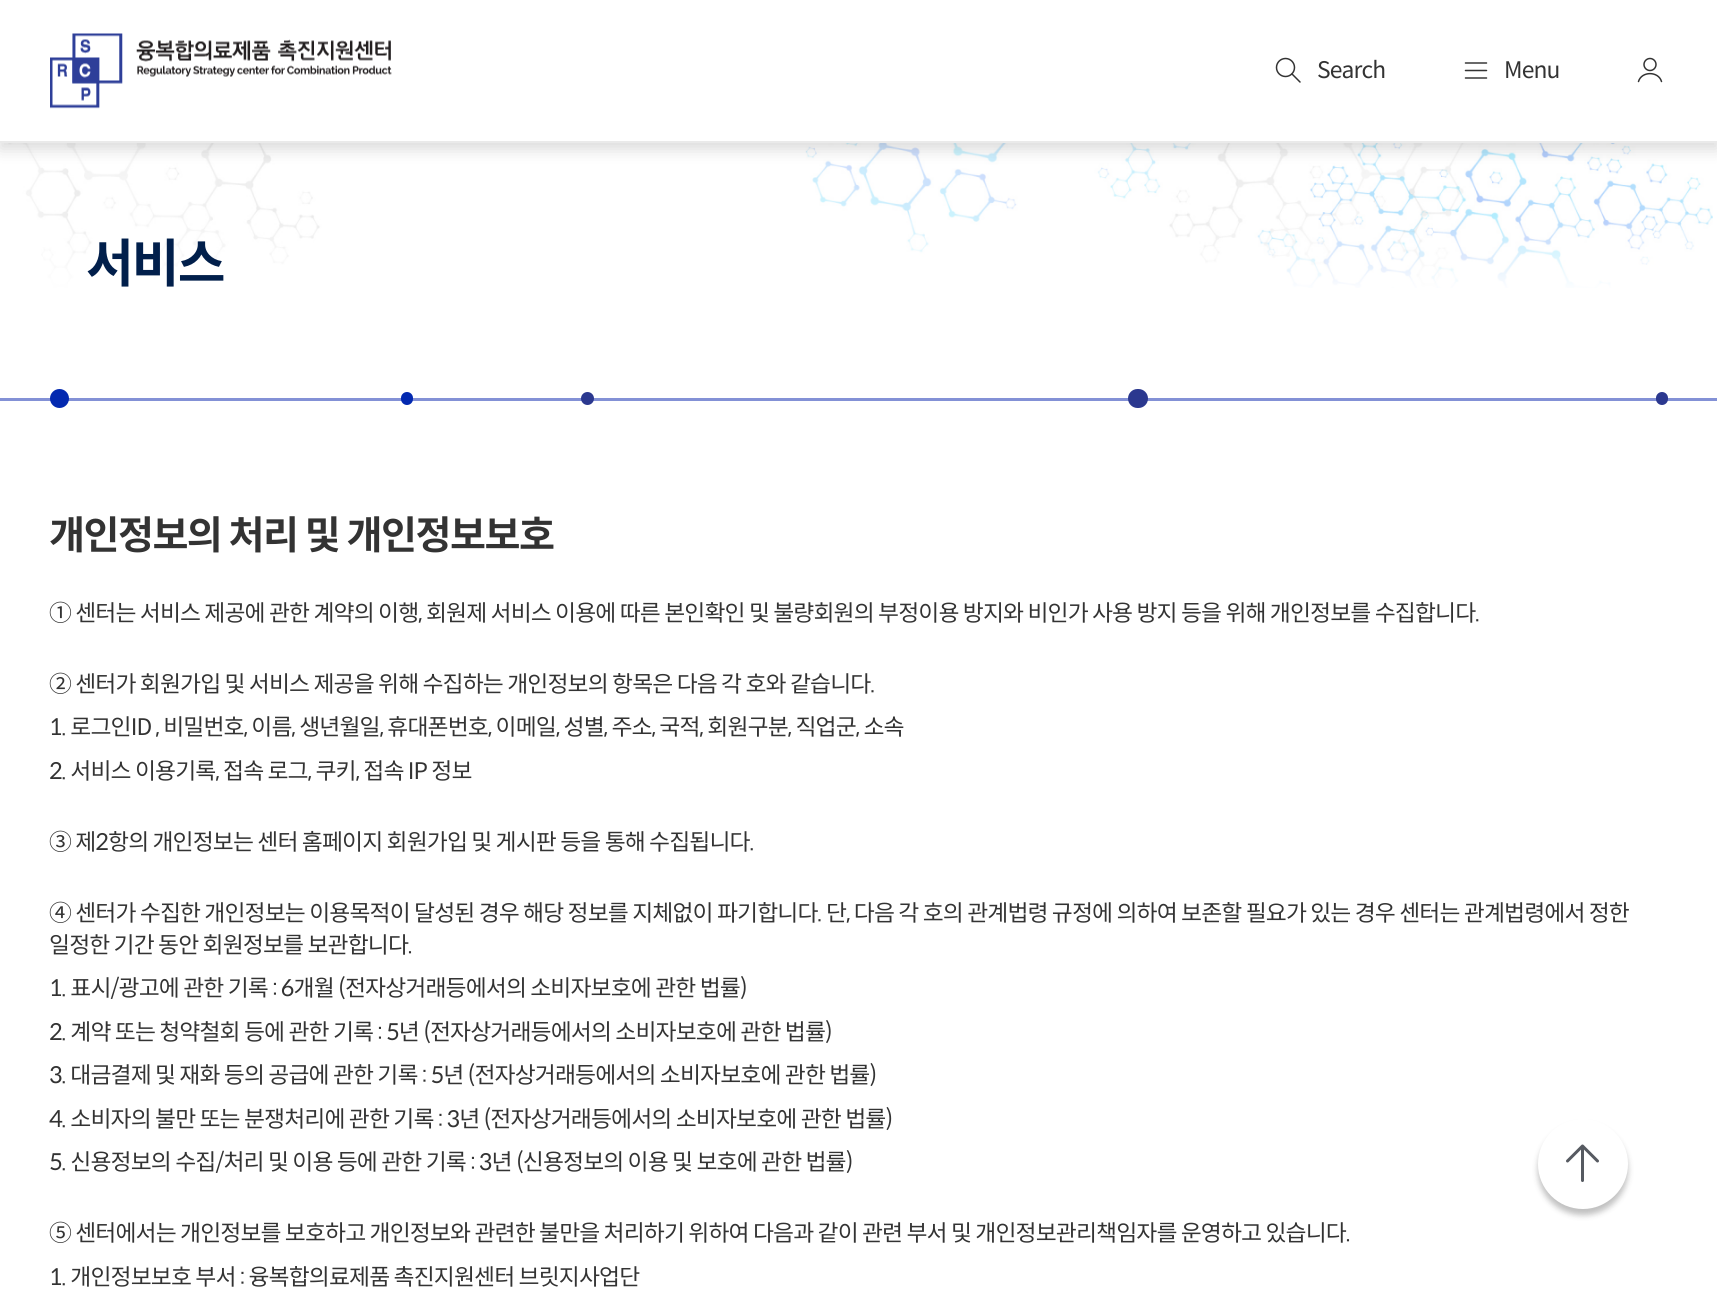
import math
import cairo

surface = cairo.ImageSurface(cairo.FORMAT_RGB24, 1717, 1298)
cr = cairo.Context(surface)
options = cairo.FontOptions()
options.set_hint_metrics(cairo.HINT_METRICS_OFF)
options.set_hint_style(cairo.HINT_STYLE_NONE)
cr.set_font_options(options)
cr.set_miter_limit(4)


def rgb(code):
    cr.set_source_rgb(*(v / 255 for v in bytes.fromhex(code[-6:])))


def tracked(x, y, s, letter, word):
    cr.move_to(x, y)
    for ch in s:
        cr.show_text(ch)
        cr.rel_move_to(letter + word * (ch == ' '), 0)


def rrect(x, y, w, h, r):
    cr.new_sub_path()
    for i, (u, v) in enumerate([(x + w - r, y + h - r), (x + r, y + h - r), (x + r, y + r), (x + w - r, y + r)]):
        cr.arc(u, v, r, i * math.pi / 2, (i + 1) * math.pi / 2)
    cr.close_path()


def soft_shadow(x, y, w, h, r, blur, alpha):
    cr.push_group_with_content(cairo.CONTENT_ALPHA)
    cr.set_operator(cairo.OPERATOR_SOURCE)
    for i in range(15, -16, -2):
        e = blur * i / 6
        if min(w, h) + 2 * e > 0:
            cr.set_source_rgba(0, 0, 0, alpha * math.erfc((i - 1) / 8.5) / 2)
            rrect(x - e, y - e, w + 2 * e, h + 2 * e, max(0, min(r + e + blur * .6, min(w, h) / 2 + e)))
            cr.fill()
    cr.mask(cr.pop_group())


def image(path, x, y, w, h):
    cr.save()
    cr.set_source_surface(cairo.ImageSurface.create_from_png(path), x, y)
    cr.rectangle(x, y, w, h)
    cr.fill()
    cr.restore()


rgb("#ffffff")
cr.paint()
image("img/2.png", 8, 143, 1705, 145)
rgb("#000000")
soft_shadow(0, 6, 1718, 143, 0, 8, 0.15)
rgb("#ffffff")
cr.rectangle(0, 0, 1717, 141)
cr.fill()
rgb("#eaeaea")
cr.rectangle(0, 141, 1717, 2)
cr.fill()
image("img/1.png", 50, 33, 342, 76)
cr.arc(1285.5, 67.5, 9, 0, 2 * math.pi)
rgb("#333333")
cr.set_line_width(1.5)
cr.stroke()
cr.new_path()
cr.move_to(1300, 82)
cr.line_to(1292, 74)
cr.set_line_cap(cairo.LINE_CAP_ROUND)
cr.stroke()
cr.new_path()
cr.move_to(1465.5, 63)
cr.line_to(1486.5, 63)
cr.move_to(1465.5, 70.5)
cr.line_to(1486.5, 70.5)
cr.move_to(1465.5, 78)
cr.line_to(1486.5, 78)
cr.stroke()
cr.arc(1650, 64.5, 6, 0, 2 * math.pi)
cr.set_line_cap(cairo.LINE_CAP_BUTT)
cr.stroke()
cr.new_path()
cr.move_to(1661.5, 81.5)
cr.curve_to(1658.5, 71, 1641.5, 71, 1638.5, 81.5)
cr.set_line_cap(cairo.LINE_CAP_ROUND)
cr.stroke()
rgb("#8391d6")
cr.rectangle(0, 398, 1717, 3)
cr.fill()
rgb("#0329b0")
cr.arc(59.5, 398.5, 9.5, 0, 2 * math.pi)
cr.fill()
rrect(401, 392, 12, 13, 6)
cr.fill()
rgb("#2b388f")
cr.arc(587.5, 398.5, 6.5, 0, 2 * math.pi)
cr.fill()
rrect(1128, 389, 20, 19, 9.5)
cr.fill()
rrect(1656, 392, 12, 13, 6)
cr.fill()
rgb("#000000")
soft_shadow(1538, 1125, 90, 90, 45, 3, 0.25)
rgb("#ffffff")
cr.new_path()
cr.move_to(1628, 1164)
cr.curve_to(1628, 1139, 1607, 1119, 1583, 1119)
cr.curve_to(1558, 1119, 1538, 1139, 1538, 1164)
cr.curve_to(1538, 1189, 1558, 1209, 1583, 1209)
cr.curve_to(1607, 1209, 1628, 1189, 1628, 1164)
cr.close_path()
cr.fill()
cr.new_path()
cr.move_to(1582.5, 1147.5)
cr.line_to(1582.5, 1180.5)
cr.move_to(1567.5, 1161)
cr.line_to(1582.5, 1146)
cr.line_to(1597.5, 1161)
rgb("#565a61")
cr.set_line_width(3)
cr.set_line_join(cairo.LINE_JOIN_ROUND)
cr.stroke()
cr.select_font_face("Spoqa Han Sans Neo")
cr.set_font_size(22.85)
rgb("#333333")
tracked(1317, 78, "Search", -0.9, 0)
tracked(1504, 78, "Menu", -0.9, 0)
cr.select_font_face("Spoqa Han Sans Neo", cairo.FONT_SLANT_NORMAL, cairo.FONT_WEIGHT_BOLD)
cr.set_font_size(52)
rgb("#011f4b")
tracked(86, 282, "서비스", -2, 0)
cr.set_font_size(39.2)
rgb("#333333")
tracked(49, 549, "개인정보의 처리 및 개인정보보호", -1.6, 0)
cr.select_font_face("Spoqa Han Sans Neo")
cr.set_font_size(22.85)
for x, y, s in [
    (49, 621, "① 센터는 서비스 제공에 관한 계약의 이행, 회원제 서비스 이용에 따른 본인확인 및 불량회원의 부정이용 방지와 비인가 사용 방지 등을 위해 개인정보를 수집합니다."),
    (49, 692, "② 센터가 회원가입 및 서비스 제공을 위해 수집하는 개인정보의 항목은 다음 각 호와 같습니다."),
    (49, 735, "1. 로그인ID , 비밀번호, 이름, 생년월일, 휴대폰번호, 이메일, 성별, 주소, 국적, 회원구분, 직업군, 소속"),
    (49, 779, "2. 서비스 이용기록, 접속 로그, 쿠키, 접속 IP 정보"),
    (49, 850, "③ 제2항의 개인정보는 센터 홈페이지 회원가입 및 게시판 등을 통해 수집됩니다."),
    (49, 921, "④ 센터가 수집한 개인정보는 이용목적이 달성된 경우 해당 정보를 지체없이 파기합니다. 단, 다음 각 호의 관계법령 규정에 의하여 보존할 필요가 있는 경우 센터는 관계법령에서 정한"),
    (49, 953, "일정한 기간 동안 회원정보를 보관합니다."),
    (49, 996, "1. 표시/광고에 관한 기록 : 6개월 (전자상거래등에서의 소비자보호에 관한 법률)"),
    (49, 1040, "2. 계약 또는 청약철회 등에 관한 기록 : 5년 (전자상거래등에서의 소비자보호에 관한 법률)"),
    (49, 1083, "3. 대금결제 및 재화 등의 공급에 관한 기록 : 5년 (전자상거래등에서의 소비자보호에 관한 법률)"),
    (49, 1127, "4. 소비자의 불만 또는 분쟁처리에 관한 기록 : 3년 (전자상거래등에서의 소비자보호에 관한 법률)"),
    (49, 1170, "5. 신용정보의 수집/처리 및 이용 등에 관한 기록 : 3년 (신용정보의 이용 및 보호에 관한 법률)"),
    (49, 1241, "⑤ 센터에서는 개인정보를 보호하고 개인정보와 관련한 불만을 처리하기 위하여 다음과 같이 관련 부서 및 개인정보관리책임자를 운영하고 있습니다."),
    (49, 1285, "1. 개인정보보호 부서 : 융복합의료제품 촉진지원센터 브릿지사업단"),
]:
    tracked(x, y, s, -0.9, 0)
surface.write_to_png("page.png")
